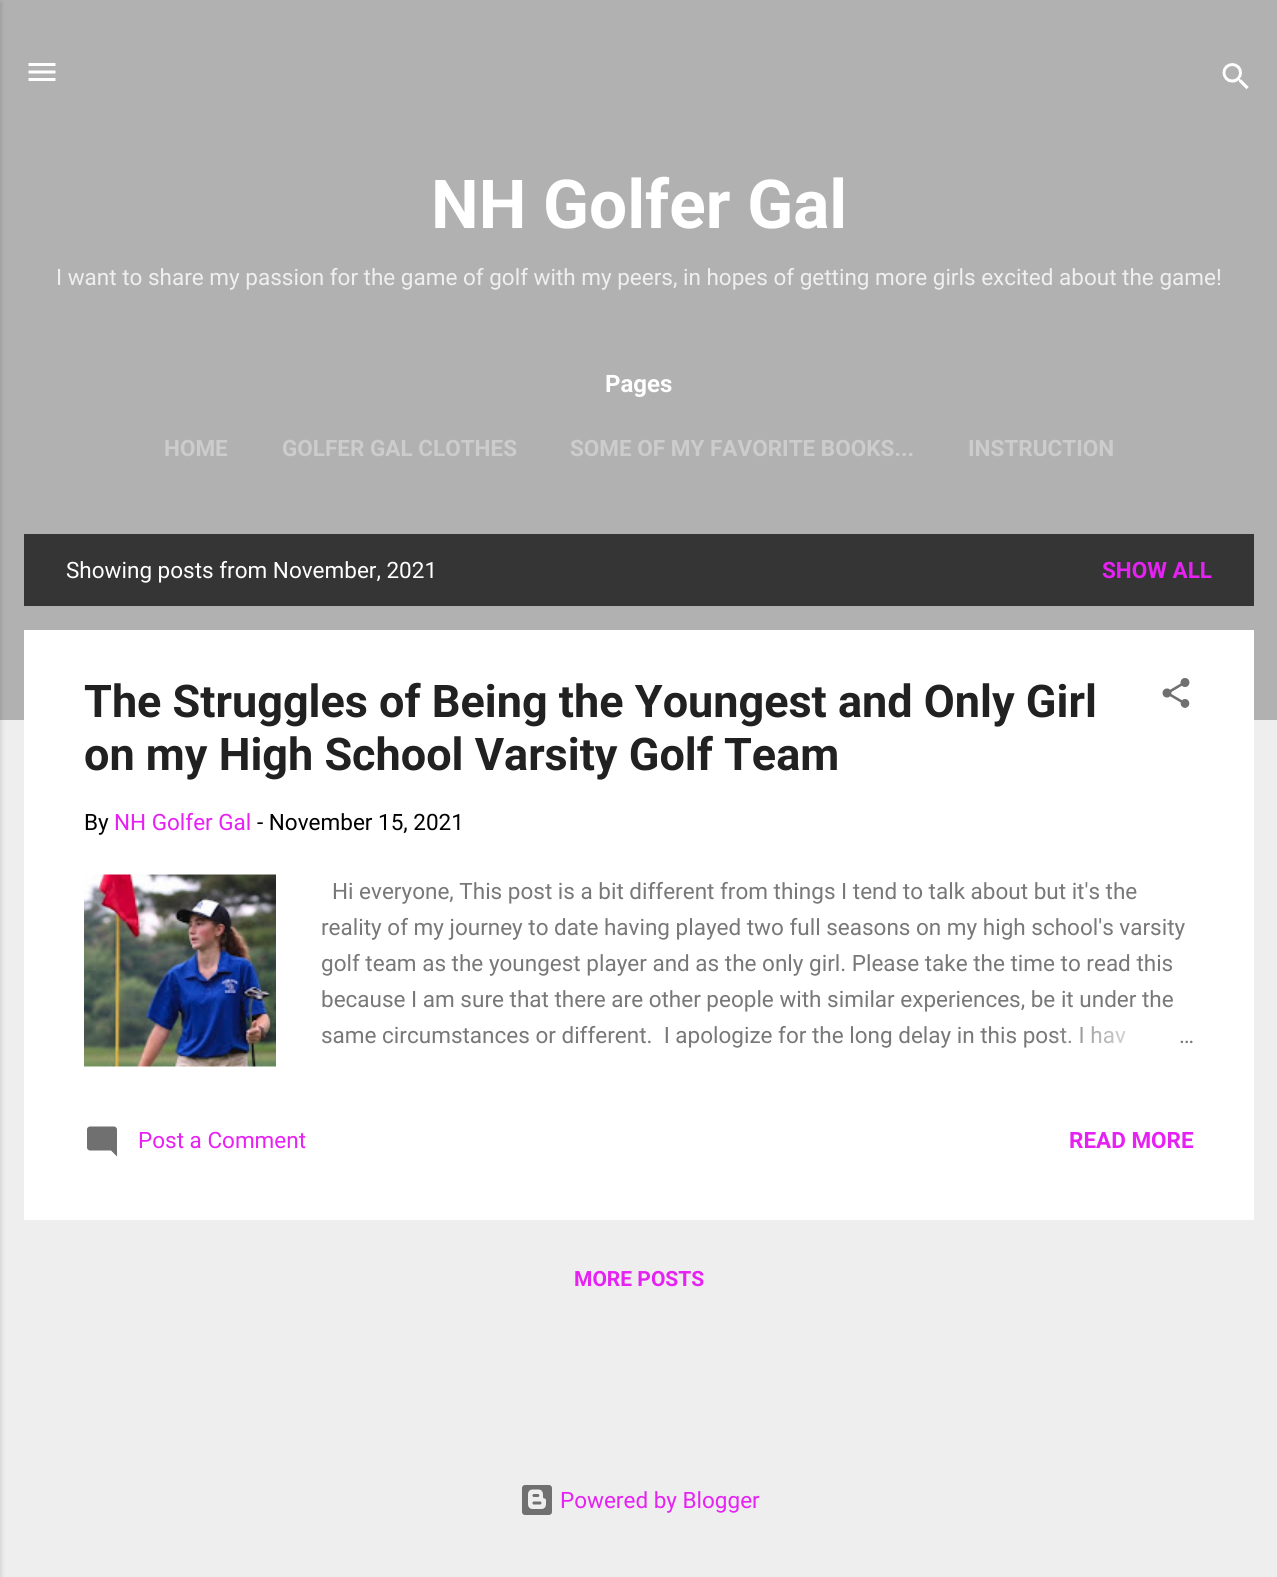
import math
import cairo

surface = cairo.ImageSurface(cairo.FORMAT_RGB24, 1277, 1577)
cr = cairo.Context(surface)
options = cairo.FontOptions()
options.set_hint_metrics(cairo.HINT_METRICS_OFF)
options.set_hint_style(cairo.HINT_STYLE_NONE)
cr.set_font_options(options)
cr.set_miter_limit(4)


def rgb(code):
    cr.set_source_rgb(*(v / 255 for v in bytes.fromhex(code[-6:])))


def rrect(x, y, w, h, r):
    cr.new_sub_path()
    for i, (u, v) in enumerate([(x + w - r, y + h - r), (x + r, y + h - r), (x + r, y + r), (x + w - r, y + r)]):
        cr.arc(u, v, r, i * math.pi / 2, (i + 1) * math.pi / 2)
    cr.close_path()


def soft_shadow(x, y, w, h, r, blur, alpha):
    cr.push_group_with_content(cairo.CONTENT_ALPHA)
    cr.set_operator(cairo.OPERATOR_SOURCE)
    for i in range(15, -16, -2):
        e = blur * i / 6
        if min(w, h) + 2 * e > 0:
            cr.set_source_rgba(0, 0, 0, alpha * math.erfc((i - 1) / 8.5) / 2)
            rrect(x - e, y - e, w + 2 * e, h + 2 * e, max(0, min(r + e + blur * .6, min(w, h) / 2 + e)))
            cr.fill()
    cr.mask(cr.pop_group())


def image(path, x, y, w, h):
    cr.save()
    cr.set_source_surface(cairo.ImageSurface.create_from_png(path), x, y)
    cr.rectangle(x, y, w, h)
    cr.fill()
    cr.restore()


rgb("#eeeeee")
cr.paint()
rgb("#b1b1b1")
cr.rectangle(0, 0, 1277, 720)
cr.fill()
rgb("#000000")
soft_shadow(-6, 2, 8, 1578, 0, 2, 0.1)
image("img/1.png", 28, 63, 28, 18)
image("img/2.png", 1222, 63, 27, 27)
rgb("#353535")
cr.rectangle(24, 534, 1230, 72)
cr.fill()
rgb("#ffffff")
cr.rectangle(24, 630, 1230, 590)
cr.fill()
image("img/3.png", 1162, 678, 28, 30)
image("img/4.png", 84, 874, 192, 193)
image("img/5.png", 87, 1126, 30, 31)
image("img/6.png", 522, 1485, 30, 30)
cr.select_font_face("Roboto", cairo.FONT_SLANT_NORMAL, cairo.FONT_WEIGHT_BOLD)
cr.set_font_size(67.5)
cr.move_to(431, 228)
cr.show_text("NH Golfer Gal")
cr.select_font_face("Roboto")
cr.set_font_size(22.5)
rgb("#efefef")
cr.move_to(56, 285)
cr.show_text("I want to share my passion for the game of golf with my peers, in hopes of getting more girls excited about the game!")
cr.select_font_face("Roboto", cairo.FONT_SLANT_NORMAL, cairo.FONT_WEIGHT_BOLD)
cr.set_font_size(24)
rgb("#ffffff")
cr.move_to(605, 392)
cr.show_text("Pages")
cr.set_font_size(22.5)
rgb("#cccccc")
for x, y, s in [
    (164, 456, "HOME"),
    (282, 456, "GOLFER GAL CLOTHES"),
    (570, 456, "SOME OF MY FAVORITE BOOKS..."),
    (968, 456, "INSTRUCTION"),
]:
    cr.move_to(x, y)
    cr.show_text(s)
cr.select_font_face("Roboto")
rgb("#ffffff")
cr.move_to(66, 578)
cr.show_text("Showing posts from November, 2021")
cr.select_font_face("Roboto", cairo.FONT_SLANT_NORMAL, cairo.FONT_WEIGHT_BOLD)
rgb("#e621f3")
cr.move_to(1102, 578)
cr.show_text("SHOW ALL")
cr.set_font_size(45)
rgb("#212121")
cr.move_to(84, 717)
cr.show_text("The Struggles of Being the Youngest and Only Girl")
cr.move_to(84, 770)
cr.show_text("on my High School Varsity Golf Team")
cr.select_font_face("Roboto")
cr.set_font_size(22.5)
rgb("#000000")
cr.move_to(84, 830)
cr.show_text("By")
rgb("#e621f3")
cr.move_to(114, 830)
cr.show_text("NH Golfer Gal")
rgb("#000000")
cr.move_to(257, 830)
cr.show_text("- November 15, 2021")
rgb("#787878")
for x, y, s in [
    (332, 899, "Hi everyone, This post is a bit different from things I tend to talk about but it's the"),
    (321, 935, "reality of my journey to date having played two full seasons on my high school's varsity"),
    (321, 971, "golf team as the youngest player and as the only girl. Please take the time to read this"),
    (321, 1007, "because I am sure that there are other people with similar experiences, be it under the"),
    (321, 1043, "same circumstances or different.  I apologize for the long delay in this post. I hav"),
]:
    cr.move_to(x, y)
    cr.show_text(s)
gradient = cairo.LinearGradient(1194, 1037, 1050, 1037)
gradient.add_color_stop_rgba(0, 1, 1, 1, 1)
gradient.add_color_stop_rgba(0.2, 1, 1, 1, 1)
gradient.add_color_stop_rgba(1, 1, 1, 1, 0)
cr.set_source(gradient)
cr.rectangle(1052, 1026, 74, 18)
cr.fill()
rgb("#787878")
cr.move_to(1179, 1043)
cr.show_text("…")
rgb("#e621f3")
cr.move_to(138, 1148)
cr.show_text("Post a Comment")
cr.select_font_face("Roboto", cairo.FONT_SLANT_NORMAL, cairo.FONT_WEIGHT_BOLD)
cr.move_to(1069, 1148)
cr.show_text("READ MORE")
cr.set_font_size(21)
cr.move_to(574, 1286)
cr.show_text("MORE POSTS")
cr.select_font_face("Roboto")
cr.set_font_size(22.5)
cr.move_to(560, 1508)
cr.show_text("Powered by Blogger")
surface.write_to_png("page.png")
